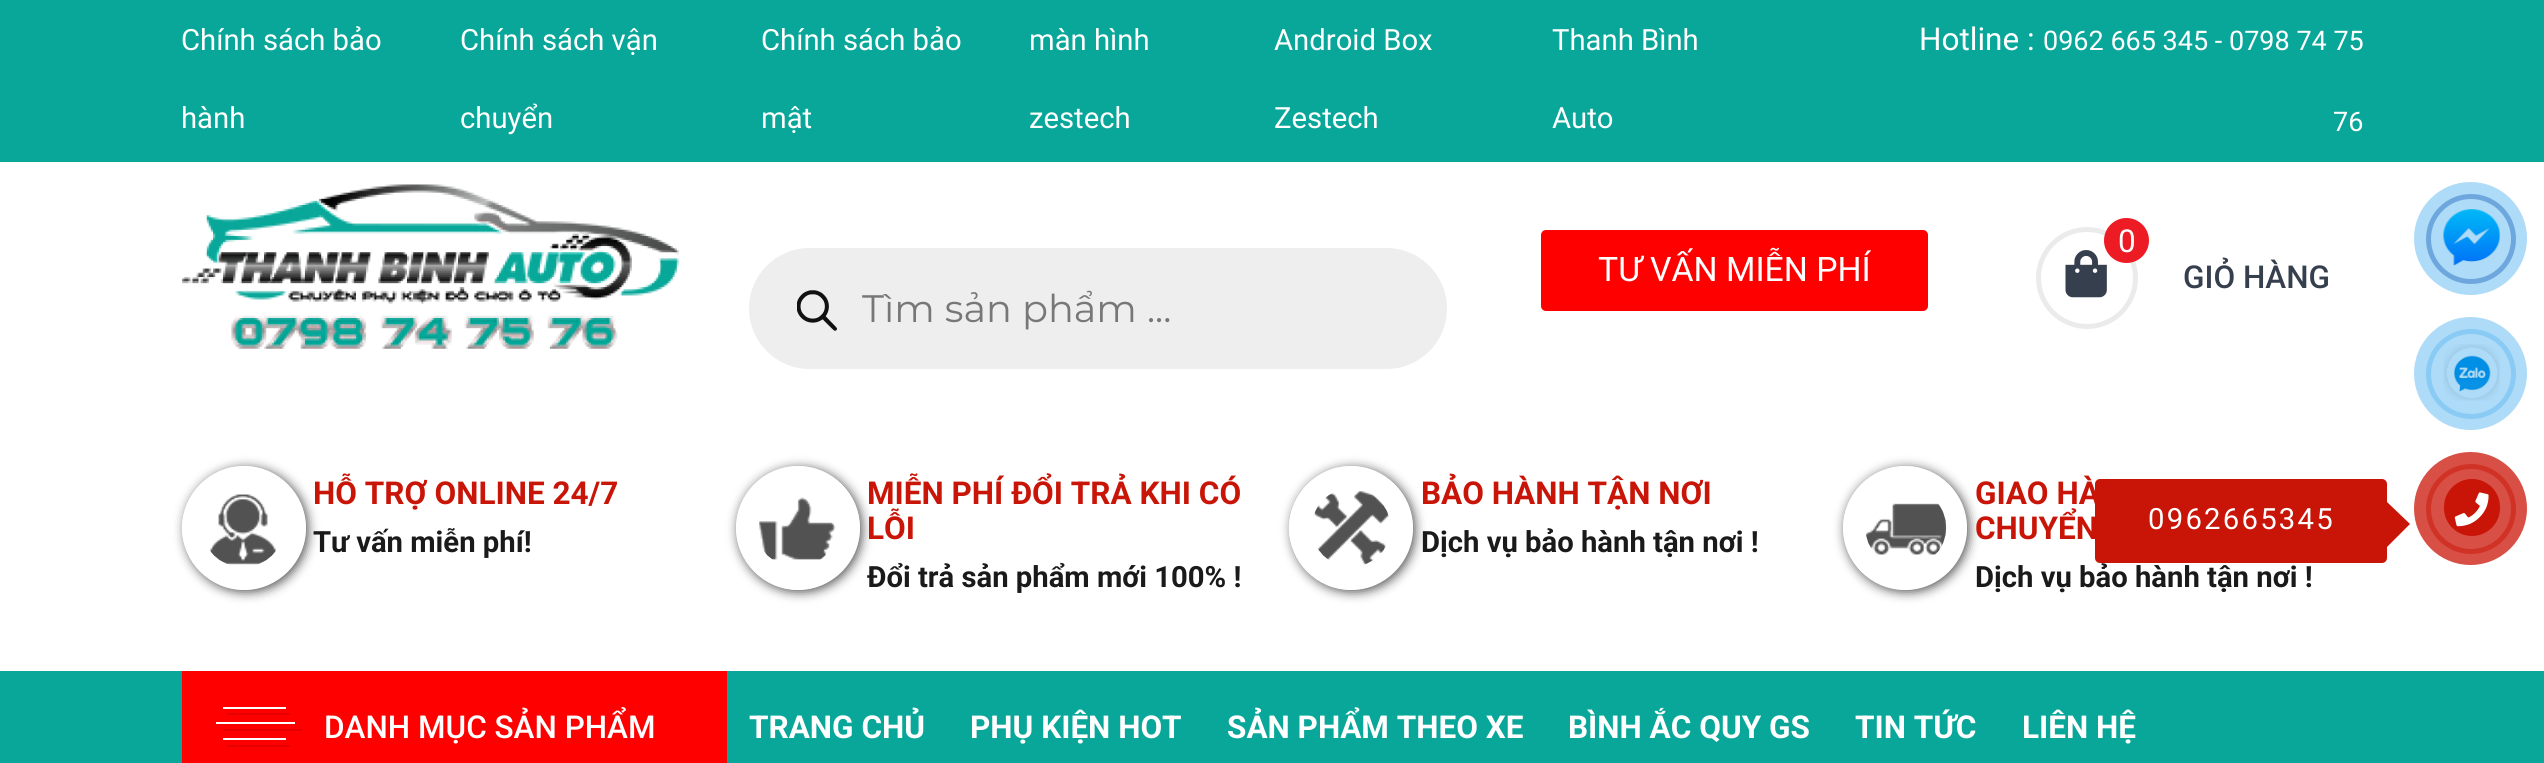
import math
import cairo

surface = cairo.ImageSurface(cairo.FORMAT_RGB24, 2544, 763)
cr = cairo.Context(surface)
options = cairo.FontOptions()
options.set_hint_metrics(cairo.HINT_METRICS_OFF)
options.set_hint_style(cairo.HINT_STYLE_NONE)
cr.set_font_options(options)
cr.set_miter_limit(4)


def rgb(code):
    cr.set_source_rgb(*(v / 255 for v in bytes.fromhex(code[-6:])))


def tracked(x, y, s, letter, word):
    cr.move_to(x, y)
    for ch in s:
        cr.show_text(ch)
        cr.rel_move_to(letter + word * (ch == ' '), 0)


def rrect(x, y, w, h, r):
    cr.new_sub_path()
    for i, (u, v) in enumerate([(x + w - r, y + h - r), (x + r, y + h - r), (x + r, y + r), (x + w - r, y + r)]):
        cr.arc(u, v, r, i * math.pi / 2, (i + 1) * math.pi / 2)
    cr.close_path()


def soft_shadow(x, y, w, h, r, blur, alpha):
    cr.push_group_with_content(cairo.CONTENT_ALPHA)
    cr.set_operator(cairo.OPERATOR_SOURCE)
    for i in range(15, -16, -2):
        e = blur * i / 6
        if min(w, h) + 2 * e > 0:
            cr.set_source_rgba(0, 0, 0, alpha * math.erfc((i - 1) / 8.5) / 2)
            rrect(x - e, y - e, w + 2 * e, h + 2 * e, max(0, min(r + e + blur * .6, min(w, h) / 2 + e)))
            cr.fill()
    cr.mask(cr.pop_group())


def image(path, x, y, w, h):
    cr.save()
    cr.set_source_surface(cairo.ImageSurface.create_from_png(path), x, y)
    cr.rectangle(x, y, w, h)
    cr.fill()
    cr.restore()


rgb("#ffffff")
cr.paint()
rgb("#08a799")
cr.rectangle(0, 0, 2544, 162)
cr.fill()
image("img/1.png", 182, 184, 498, 165)
rgb("#ff0000")
rrect(1541, 230, 387, 81, 5)
cr.fill()
rgb("#eeeeee")
rrect(749, 248, 698, 121, 60.5)
cr.fill()
image("img/2.png", 797, 290, 40, 41)
cr.arc(2087, 278, 48.5, 0, 2 * math.pi)
rgb("#ebebeb")
cr.set_line_width(5)
cr.stroke()
image("img/3.png", 2065, 250, 42, 48)
rgb("#ed1b24")
cr.arc(2126.5, 240.5, 22.5, 0, 2 * math.pi)
cr.fill()
cr.save()
cr.set_fill_rule(cairo.FILL_RULE_EVEN_ODD)
cr.new_path()
cr.move_to(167, 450)
cr.line_to(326, 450)
cr.line_to(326, 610)
cr.line_to(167, 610)
cr.close_path()
cr.move_to(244, 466)
cr.curve_to(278, 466, 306, 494, 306, 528)
cr.curve_to(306, 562, 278, 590, 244, 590)
cr.curve_to(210, 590, 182, 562, 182, 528)
cr.curve_to(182, 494, 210, 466, 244, 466)
cr.close_path()
cr.clip()
rgb("#525252")
soft_shadow(185, 468, 123, 124, 61.5, 5.5, 1)
cr.restore()
image("img/4.png", 210, 494, 66, 71)
cr.save()
cr.set_fill_rule(cairo.FILL_RULE_EVEN_ODD)
cr.new_path()
cr.move_to(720, 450)
cr.line_to(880, 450)
cr.line_to(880, 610)
cr.line_to(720, 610)
cr.close_path()
cr.move_to(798, 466)
cr.curve_to(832, 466, 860, 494, 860, 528)
cr.curve_to(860, 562, 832, 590, 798, 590)
cr.curve_to(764, 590, 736, 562, 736, 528)
cr.curve_to(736, 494, 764, 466, 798, 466)
cr.close_path()
cr.clip()
rgb("#525252")
soft_shadow(738, 468, 124, 124, 62, 5.5, 1)
cr.restore()
image("img/5.png", 759, 497, 77, 63)
cr.save()
cr.set_fill_rule(cairo.FILL_RULE_EVEN_ODD)
cr.new_path()
cr.move_to(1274, 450)
cr.line_to(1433, 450)
cr.line_to(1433, 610)
cr.line_to(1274, 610)
cr.close_path()
cr.move_to(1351, 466)
cr.curve_to(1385, 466, 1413, 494, 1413, 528)
cr.curve_to(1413, 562, 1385, 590, 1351, 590)
cr.curve_to(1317, 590, 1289, 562, 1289, 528)
cr.curve_to(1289, 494, 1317, 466, 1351, 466)
cr.close_path()
cr.clip()
rgb("#525252")
soft_shadow(1292, 468, 123, 124, 61.5, 5.5, 1)
cr.restore()
image("img/6.png", 1314, 491, 75, 74)
cr.save()
cr.set_fill_rule(cairo.FILL_RULE_EVEN_ODD)
cr.new_path()
cr.move_to(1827, 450)
cr.line_to(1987, 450)
cr.line_to(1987, 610)
cr.line_to(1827, 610)
cr.close_path()
cr.move_to(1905, 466)
cr.curve_to(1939, 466, 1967, 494, 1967, 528)
cr.curve_to(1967, 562, 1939, 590, 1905, 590)
cr.curve_to(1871, 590, 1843, 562, 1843, 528)
cr.curve_to(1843, 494, 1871, 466, 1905, 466)
cr.close_path()
cr.clip()
rgb("#525252")
soft_shadow(1845, 468, 124, 124, 62, 5.5, 1)
cr.restore()
image("img/7.png", 1865, 503, 82, 52)
for x, y, w, h, color in [
    (0, 671, 2544, 92, "#08a799"),
    (182, 671, 545, 92, "#ff0000"),
    (227, 713, 63, 2, "#e60000"),
    (223, 707, 63, 2, "#ffffff"),
    (223, 729, 79, 2, "#e60000"),
    (216, 722, 79, 2, "#ffffff"),
    (227, 745, 63, 2, "#e60000"),
    (223, 738, 63, 2, "#ffffff"),
]:
    rgb(color)
    cr.rectangle(x, y, w, h)
    cr.fill()
image("img/8.png", 2443, 209, 57, 57)
cr.arc(2471, 239, 42.5, 0, 2 * math.pi)
rgb("#a1b3d9")
cr.stroke()
cr.set_source_rgba(0.012, 0.561, 0.902, 0.32)
cr.arc(2470.5, 238.5, 56.5, 0, 2 * math.pi)
cr.fill()
image("img/9.png", 2443, 344, 57, 57)
cr.arc(2471, 374, 42.5, 0, 2 * math.pi)
rgb("#c9e7fa")
cr.stroke()
cr.set_source_rgba(0.012, 0.561, 0.902, 0.32)
cr.arc(2470.5, 373.5, 56.5, 0, 2 * math.pi)
cr.fill()
cr.arc(2471, 509, 42.5, 0, 2 * math.pi)
rgb("#e48a84")
cr.stroke()
cr.set_source_rgba(0.788, 0.082, 0.031, 0.75)
cr.arc(2470.5, 508.5, 56.5, 0, 2 * math.pi)
cr.fill()
rgb("#c91508")
rrect(2095, 479, 292, 84, 5)
cr.fill()
cr.new_path()
cr.move_to(2387, 547)
cr.line_to(2387, 502)
cr.line_to(2410, 524)
cr.close_path()
cr.fill()
rrect(2444, 479, 56, 57, 28)
cr.fill()
image("img/10.png", 2454, 492, 35, 35)
cr.select_font_face("Roboto")
cr.set_font_size(29.25)
rgb("#ffffff")
for x, y, s in [
    (181, 50, "Chính sách bảo"),
    (181, 128, "hành"),
    (460, 50, "Chính sách vận"),
    (460, 128, "chuyển"),
    (761, 50, "Chính sách bảo"),
    (761, 128, "mật"),
    (1029, 50, "màn hình"),
    (1029, 128, "zestech"),
    (1274, 50, "Android Box"),
    (1274, 128, "Zestech"),
    (1552, 50, "Thanh Bình"),
    (1552, 128, "Auto"),
]:
    cr.move_to(x, y)
    cr.show_text(s)
cr.set_font_size(31.5)
cr.move_to(1919, 50)
cr.show_text("Hotline :")
cr.set_font_size(27)
cr.move_to(2043, 50)
cr.show_text("0962 665 345 - 0798 74 75")
cr.move_to(2333, 131)
cr.show_text("76")
cr.set_font_size(33.75)
cr.move_to(1598, 281)
cr.show_text("TƯ VẤN MIỄN PHÍ")
cr.save()
cr.rectangle(862, 286, 526, 45)
cr.clip()
cr.select_font_face("Montserrat")
cr.set_font_size(38.25)
rgb("#777777")
cr.move_to(862, 322)
cr.show_text("Tìm sản phẩm ...")
cr.restore()
cr.set_font_size(31.5)
cr.move_to(2118, 252)
cr.show_text("0")
cr.select_font_face("Roboto Medium")
rgb("#363f4d")
cr.move_to(2183, 288)
cr.show_text("GIỎ HÀNG")
cr.select_font_face("Roboto", cairo.FONT_SLANT_NORMAL, cairo.FONT_WEIGHT_BOLD)
rgb("#c91508")
cr.move_to(313, 504)
cr.show_text("HỖ TRỢ ONLINE 24/7")
cr.set_font_size(29.25)
rgb("#1a1a1a")
cr.move_to(313, 552)
cr.show_text("Tư vấn miễn phí!")
cr.set_font_size(31.5)
rgb("#c91508")
cr.move_to(867, 504)
cr.show_text("MIỄN PHÍ ĐỔI TRẢ KHI CÓ")
cr.move_to(867, 539)
cr.show_text("LỖI")
cr.set_font_size(29.25)
rgb("#1a1a1a")
cr.move_to(867, 587)
cr.show_text("Đổi trả sản phẩm mới 100% !")
cr.set_font_size(31.5)
rgb("#c91508")
cr.move_to(1421, 504)
cr.show_text("BẢO HÀNH TẬN NƠI")
cr.set_font_size(29.25)
rgb("#1a1a1a")
cr.move_to(1421, 552)
cr.show_text("Dịch vụ bảo hành tận nơi !")
cr.set_font_size(31.5)
rgb("#c91508")
cr.move_to(1975, 504)
cr.show_text("GIAO HÀ")
cr.move_to(1975, 539)
cr.show_text("CHUYỂN")
cr.set_font_size(29.25)
rgb("#1a1a1a")
cr.move_to(1975, 587)
cr.show_text("Dịch vụ bảo hành tận nơi !")
cr.select_font_face("Roboto Medium")
cr.set_font_size(31.5)
rgb("#ffffff")
cr.move_to(324, 738)
cr.show_text("DANH MỤC SẢN PHẨM")
cr.select_font_face("Roboto", cairo.FONT_SLANT_NORMAL, cairo.FONT_WEIGHT_BOLD)
for x, y, s in [
    (749, 738, "TRANG CHỦ"),
    (970, 738, "PHỤ KIỆN HOT"),
    (1227, 738, "SẢN PHẨM THEO XE"),
    (1568, 738, "BÌNH ẮC QUY GS"),
    (1855, 738, "TIN TỨC"),
    (2022, 738, "LIÊN HỆ"),
]:
    cr.move_to(x, y)
    cr.show_text(s)
cr.select_font_face("Roboto")
cr.set_font_size(29.25)
tracked(2148, 529, "0962665345", 2.25, 0)
surface.write_to_png("page.png")
